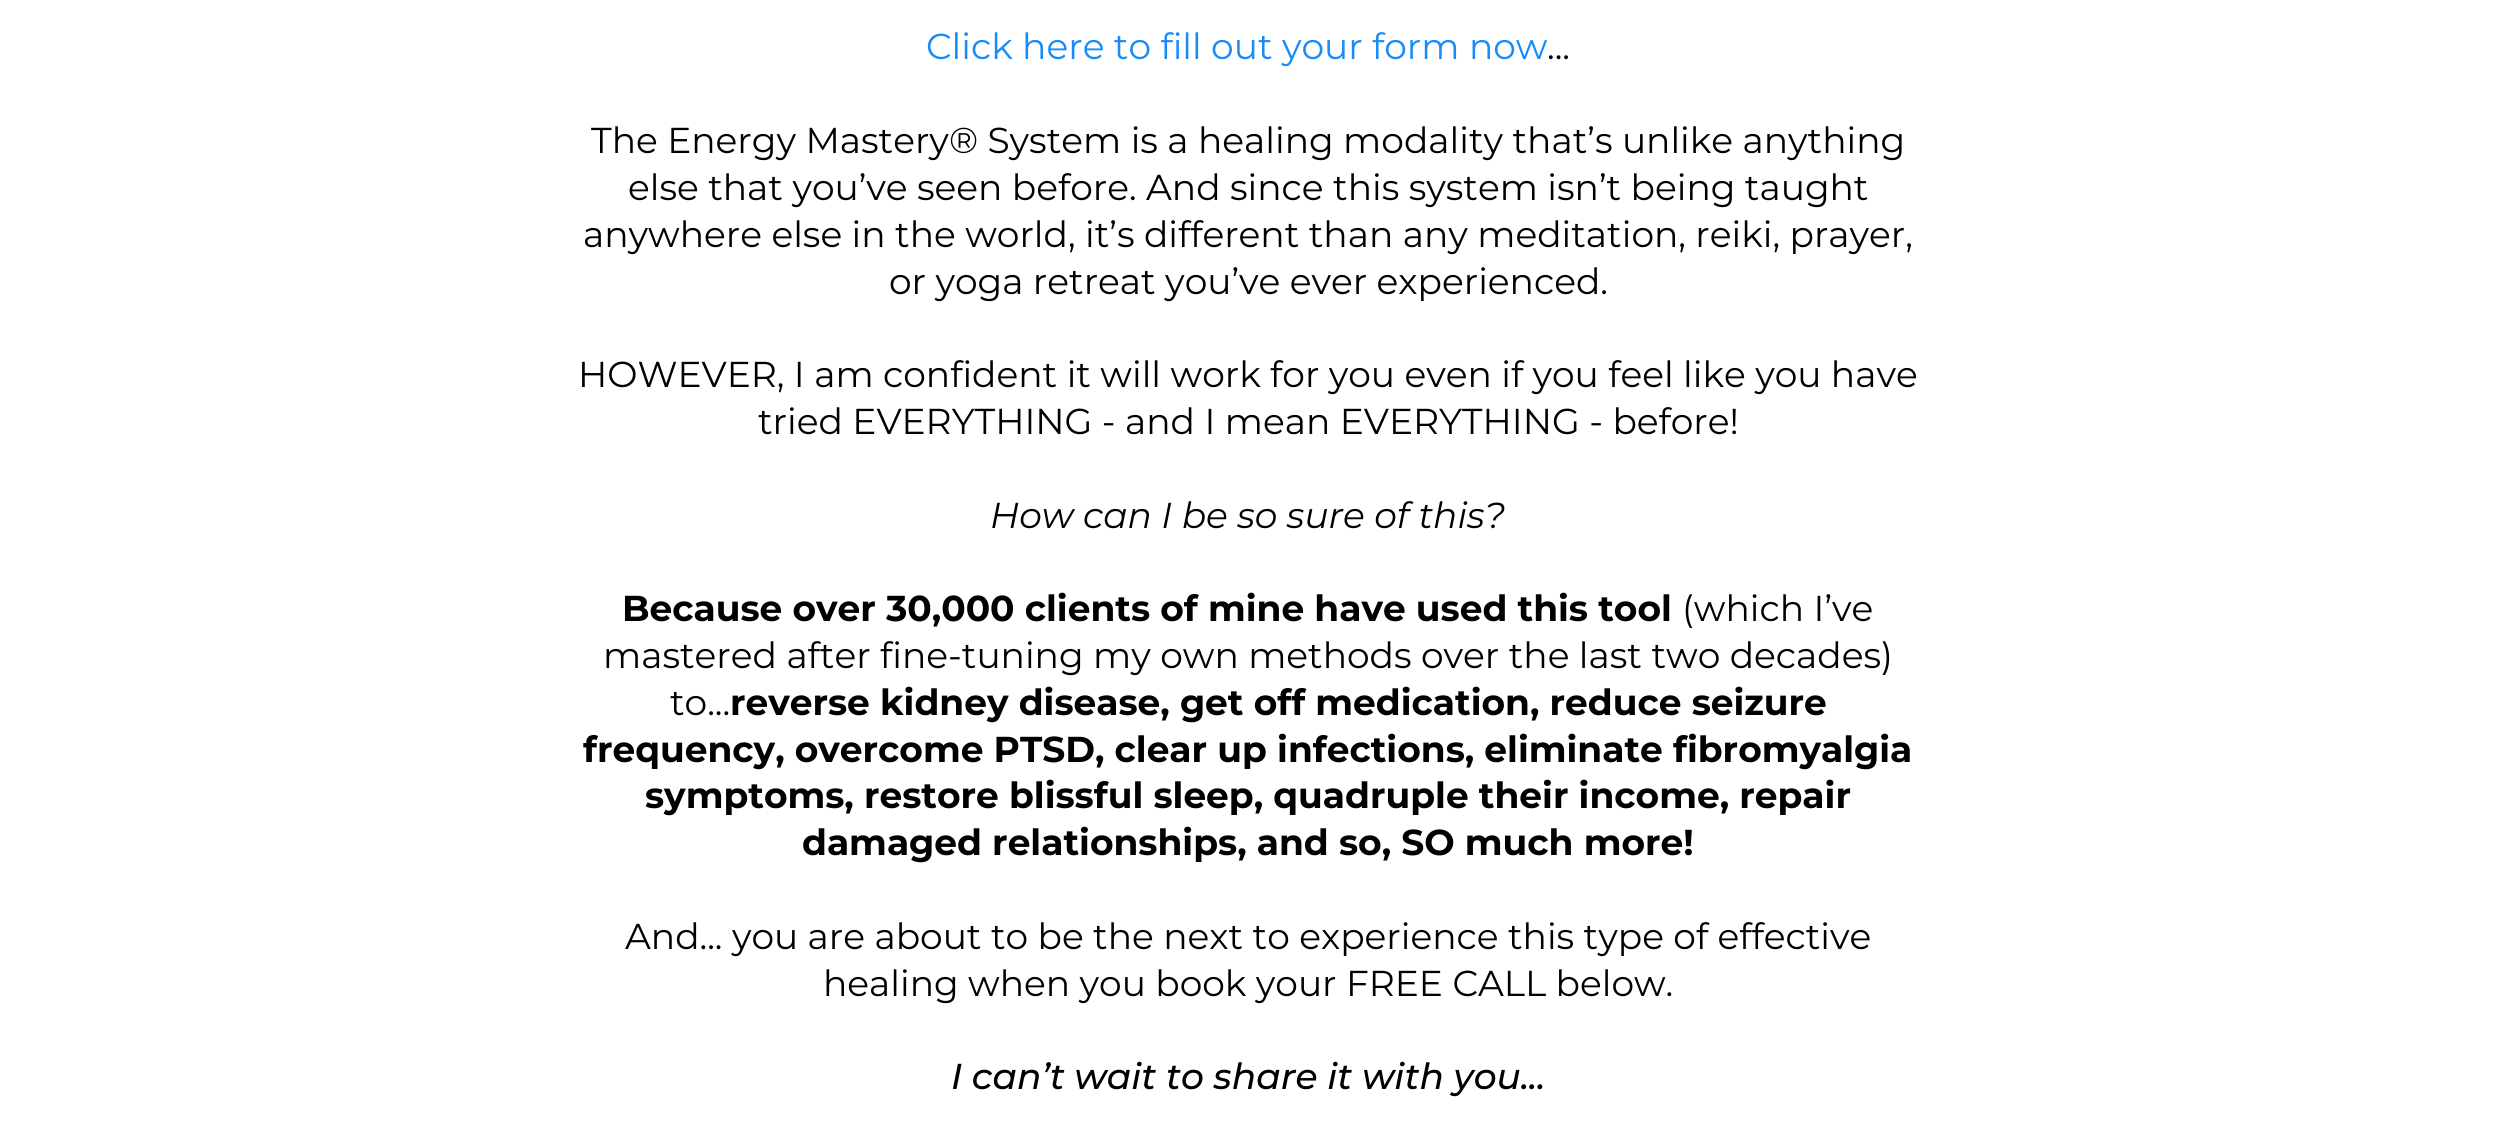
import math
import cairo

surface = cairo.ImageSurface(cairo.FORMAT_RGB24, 2495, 1145)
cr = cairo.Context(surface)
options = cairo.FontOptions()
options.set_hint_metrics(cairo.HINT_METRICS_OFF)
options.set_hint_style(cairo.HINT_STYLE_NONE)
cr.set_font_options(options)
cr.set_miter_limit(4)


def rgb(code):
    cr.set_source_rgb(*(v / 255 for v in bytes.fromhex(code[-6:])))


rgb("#ffffff")
cr.paint()
cr.select_font_face("Montserrat")
cr.set_font_size(36)
rgb("#188bf6")
cr.move_to(926, 59)
cr.show_text("Click here to fill out your form now")
rgb("#000000")
for x, y, s in [
    (1547, 59, "..."),
    (591, 153, "The Energy Mastery® System is a healing modality that’s unlike anything"),
    (628, 200, "else that you’ve seen before. And since this system isn’t being taught"),
    (583, 247, "anywhere else in the world, it’s different than any meditation, reiki, prayer,"),
    (889, 294, "or yoga retreat you’ve ever experienced."),
    (578, 387, "HOWEVER, I am confident it will work for you even if you feel like you have"),
    (758, 434, "tried EVERYTHING - and I mean EVERYTHING - before!"),
]:
    cr.move_to(x, y)
    cr.show_text(s)
cr.select_font_face("Montserrat", cairo.FONT_SLANT_ITALIC)
cr.move_to(990, 528)
cr.show_text("How can I be so sure of this?")
cr.select_font_face("Montserrat", cairo.FONT_SLANT_NORMAL, cairo.FONT_WEIGHT_BOLD)
cr.move_to(622, 621)
cr.show_text("Because over 30,000 clients of mine have used this tool")
cr.select_font_face("Montserrat")
for x, y, s in [
    (1682, 621, "(which I’ve"),
    (603, 668, "mastered after fine-tuning my own methods over the last two decades)"),
    (670, 715, "to..."),
]:
    cr.move_to(x, y)
    cr.show_text(s)
cr.select_font_face("Montserrat", cairo.FONT_SLANT_NORMAL, cairo.FONT_WEIGHT_BOLD)
for x, y, s in [
    (730, 715, "reverse kidney disease, get off medication, reduce seizure"),
    (583, 762, "frequency, overcome PTSD, clear up infections, eliminate fibromyalgia"),
    (645, 808, "symptoms, restore blissful sleep, quadruple their income, repair"),
    (802, 855, "damaged relationships, and so, SO much more!"),
]:
    cr.move_to(x, y)
    cr.show_text(s)
cr.select_font_face("Montserrat")
cr.move_to(625, 949)
cr.show_text("And... you are about to be the next to experience this type of effective")
cr.move_to(823, 996)
cr.show_text("healing when you book your FREE CALL below.")
cr.select_font_face("Montserrat Medium", cairo.FONT_SLANT_ITALIC)
cr.move_to(951, 1089)
cr.show_text("I can’t wait to share it with you...")
surface.write_to_png("page.png")
